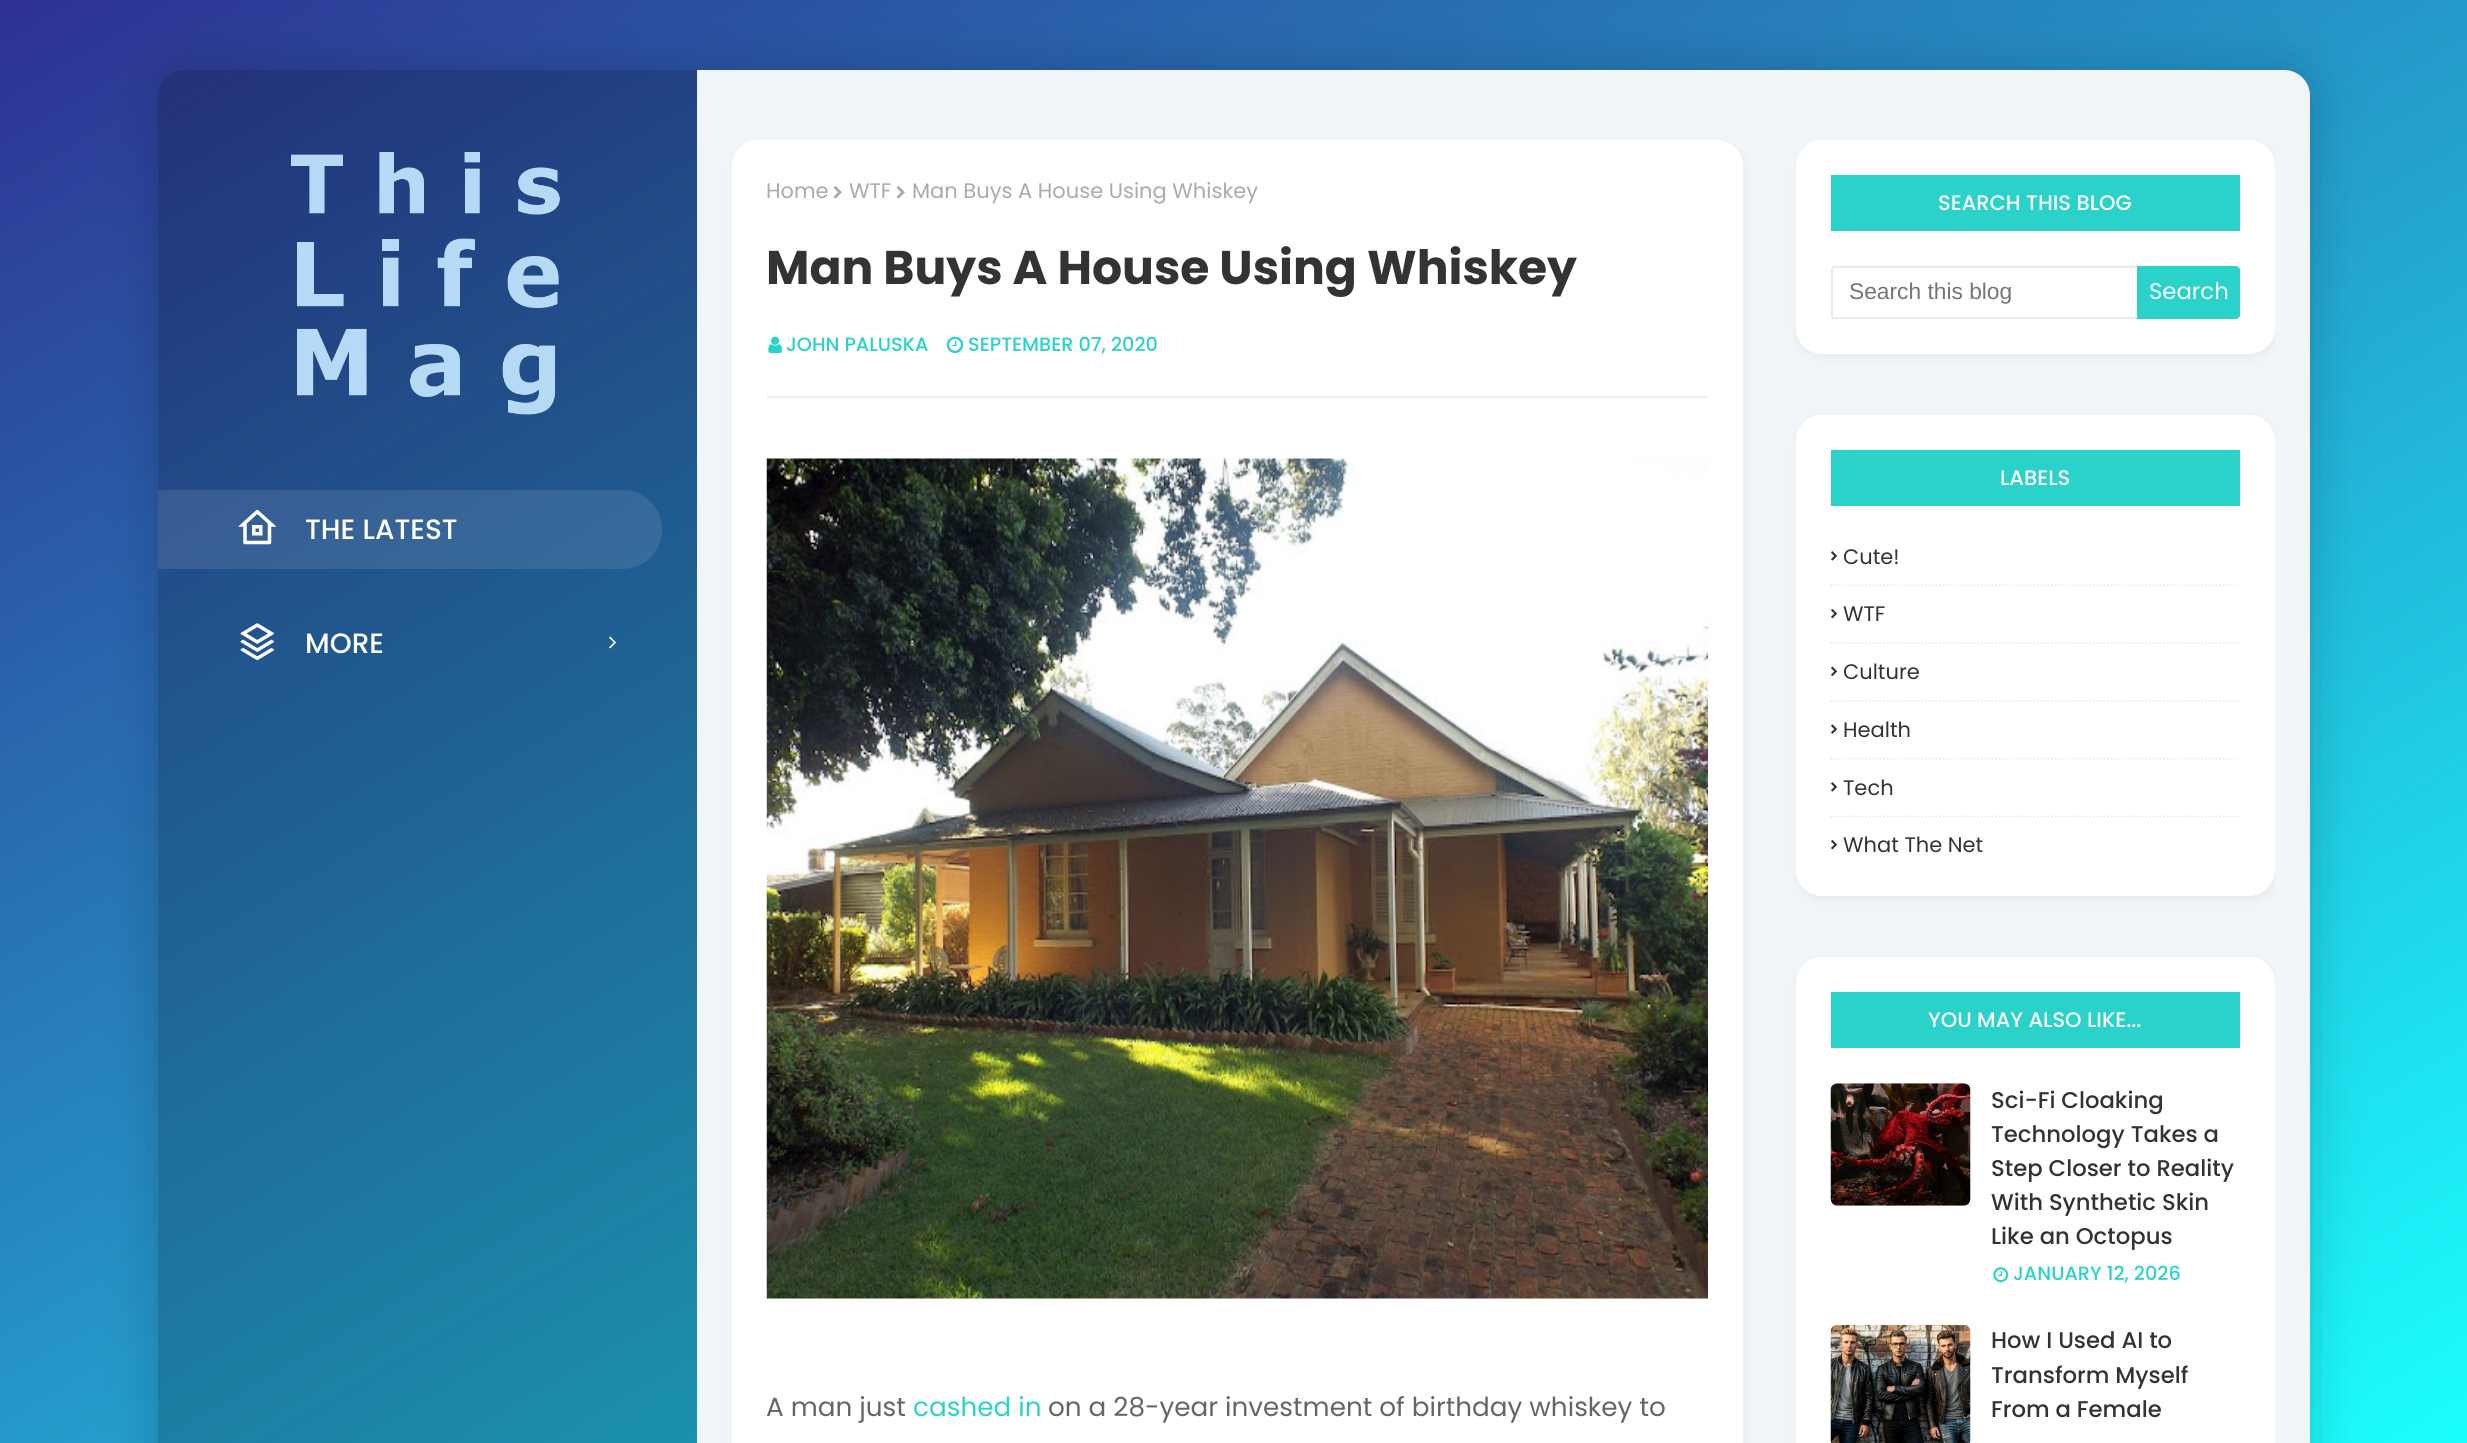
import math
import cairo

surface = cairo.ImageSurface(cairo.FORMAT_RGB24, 2467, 1443)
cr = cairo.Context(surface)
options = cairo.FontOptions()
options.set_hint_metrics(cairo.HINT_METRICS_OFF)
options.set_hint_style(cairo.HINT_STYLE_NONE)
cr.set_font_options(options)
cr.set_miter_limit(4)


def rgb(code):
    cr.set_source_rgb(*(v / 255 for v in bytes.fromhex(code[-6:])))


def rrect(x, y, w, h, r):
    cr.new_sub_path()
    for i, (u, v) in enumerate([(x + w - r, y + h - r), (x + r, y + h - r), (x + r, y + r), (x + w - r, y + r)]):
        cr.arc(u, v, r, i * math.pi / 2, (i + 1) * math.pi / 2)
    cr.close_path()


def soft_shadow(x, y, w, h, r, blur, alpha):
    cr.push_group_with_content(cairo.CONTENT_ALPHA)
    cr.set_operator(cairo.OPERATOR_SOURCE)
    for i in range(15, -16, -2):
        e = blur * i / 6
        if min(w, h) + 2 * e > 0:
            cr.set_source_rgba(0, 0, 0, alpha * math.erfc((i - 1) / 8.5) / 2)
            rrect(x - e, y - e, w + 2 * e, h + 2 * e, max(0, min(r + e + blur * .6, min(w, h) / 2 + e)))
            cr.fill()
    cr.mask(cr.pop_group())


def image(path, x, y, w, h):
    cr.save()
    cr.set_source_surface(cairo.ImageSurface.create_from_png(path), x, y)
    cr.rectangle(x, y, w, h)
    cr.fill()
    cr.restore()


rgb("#ffffff")
cr.paint()
gradient = cairo.LinearGradient(604, -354, 1863, 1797)
gradient.add_color_stop_rgba(0, 0.18, 0.192, 0.573, 1)
gradient.add_color_stop_rgba(1, 0.106, 1, 1, 1)
cr.set_source(gradient)
cr.rectangle(0, 0, 2467, 1443)
cr.fill()
cr.save()
cr.set_fill_rule(cairo.FILL_RULE_EVEN_ODD)
cr.new_path()
cr.move_to(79, 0)
cr.line_to(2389, 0)
cr.line_to(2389, 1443)
cr.line_to(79, 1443)
cr.close_path()
cr.move_to(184, 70)
cr.line_to(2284, 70)
cr.curve_to(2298.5, 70, 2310, 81.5, 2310, 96)
cr.line_to(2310, 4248)
cr.curve_to(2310, 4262.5, 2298.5, 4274, 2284, 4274)
cr.line_to(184, 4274)
cr.curve_to(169.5, 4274, 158, 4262.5, 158, 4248)
cr.line_to(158, 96)
cr.curve_to(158, 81.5, 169.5, 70, 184, 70)
cr.close_path()
cr.clip()
rgb("#000000")
soft_shadow(158, 70, 2152, 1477, 26, 26, 0.2)
cr.restore()
cr.set_source_rgba(0, 0, 0, 0.2)
rrect(158, 70, 2152, 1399, 26)
cr.fill()
image("img/1.png", 291, 152, 269, 263)
cr.set_source_rgba(1, 1, 1, 0.1)
cr.new_path()
cr.move_to(158, 490)
cr.line_to(622.5, 490)
cr.curve_to(644.5, 490, 662, 507.5, 662, 529.5)
cr.curve_to(662, 551.5, 644.5, 569, 622.5, 569)
cr.line_to(158, 569)
cr.close_path()
cr.fill()
image("img/2.png", 238, 509, 39, 36)
image("img/3.png", 240, 623, 34, 37)
image("img/4.png", 609, 636, 7, 13)
rgb("#f0f5f8")
cr.new_path()
cr.move_to(697, 70)
cr.line_to(2284, 70)
cr.curve_to(2298.5, 70, 2310, 81.5, 2310, 96)
cr.line_to(2310, 1443)
cr.curve_to(2310, 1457.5, 2298.5, 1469, 2284, 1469)
cr.line_to(697, 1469)
cr.close_path()
cr.fill()
rgb("#000000")
soft_shadow(733, 144, 1012, 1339, 26, 4.5, 0.05)
rgb("#ffffff")
rrect(732, 140, 1011, 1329, 26)
cr.fill()
image("img/5.png", 833, 186, 9, 13)
image("img/5.png", 896, 186, 9, 13)
image("img/6.png", 768, 336, 14, 18)
image("img/7.png", 946, 336, 18, 18)
rgb("#eeeeee")
cr.rectangle(767, 396, 941, 2)
cr.fill()
image("img/8.png", 766, 458, 942, 841)
cr.save()
cr.rectangle(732, 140, 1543, 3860)
cr.clip()
rgb("#000000")
soft_shadow(1797, 144, 480, 213, 26, 4.5, 0.05)
cr.restore()
rgb("#ffffff")
rrect(1796, 140, 479, 214, 26)
cr.fill()
for x, y, w, h, color in [
    (1831, 175, 409, 56, "#2ad2c9"),
    (1832, 266, 305, 2, "#ebebeb"),
    (1832, 317, 305, 2, "#ebebeb"),
    (1831, 268, 2, 49, "#ebebeb"),
]:
    rgb(color)
    cr.rectangle(x, y, w, h)
    cr.fill()
rgb("#2ad2c9")
cr.new_path()
cr.move_to(2137, 266)
cr.line_to(2236, 266)
cr.curve_to(2238, 266, 2240, 268, 2240, 270)
cr.line_to(2240, 315)
cr.curve_to(2240, 317, 2238, 319, 2236, 319)
cr.line_to(2137, 319)
cr.close_path()
cr.fill()
cr.save()
cr.rectangle(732, 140, 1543, 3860)
cr.clip()
rgb("#000000")
soft_shadow(1797, 418, 480, 482, 26, 4.5, 0.05)
cr.restore()
rgb("#ffffff")
rrect(1796, 415, 479, 481, 26)
cr.fill()
rgb("#2ad2c9")
cr.rectangle(1831, 450, 409, 56)
cr.fill()
image("img/9.png", 1831, 551, 6, 10)
cr.new_path()
cr.move_to(1830.5, 585.5)
cr.line_to(2240, 585.5)
rgb("#ebebeb")
cr.set_line_width(1.8)
cr.set_dash([1.75, 1.75])
cr.stroke()
image("img/10.png", 1831, 609, 7, 10)
cr.new_path()
cr.move_to(1830.5, 643)
cr.line_to(2240, 643)
cr.stroke()
image("img/11.png", 1831, 666, 7, 10)
cr.new_path()
cr.move_to(1830.5, 701)
cr.line_to(2240, 701)
cr.stroke()
image("img/12.png", 1831, 724, 6, 10)
cr.new_path()
cr.move_to(1830.5, 758.5)
cr.line_to(2240, 758.5)
cr.stroke()
image("img/9.png", 1831, 782, 6, 10)
cr.new_path()
cr.move_to(1830.5, 816.5)
cr.line_to(2240, 816.5)
cr.stroke()
image("img/10.png", 1831, 840, 7, 10)
cr.save()
cr.rectangle(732, 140, 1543, 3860)
cr.clip()
rgb("#000000")
soft_shadow(1797, 961, 480, 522, 26, 4.5, 0.05)
cr.restore()
rgb("#ffffff")
rrect(1796, 957, 479, 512, 26)
cr.fill()
rgb("#2ad2c9")
cr.rectangle(1831, 992, 409, 56)
cr.fill()
rgb("#f8f8f8")
cr.rectangle(1831, 1083, 140, 123)
cr.fill()
image("img/13.png", 1830, 1083, 141, 123)
image("img/14.png", 1993, 1267, 16, 16)
cr.rectangle(1831, 1325, 140, 118)
cr.fill()
image("img/15.png", 1830, 1324, 141, 119)
cr.select_font_face("Poppins Medium")
cr.set_font_size(28)
rgb("#ffffff")
cr.move_to(305, 539)
cr.show_text("THE LATEST")
cr.move_to(305, 653)
cr.show_text("MORE")
cr.select_font_face("Poppins")
cr.set_font_size(21)
rgb("#aaaaaa")
for x, y, s in [
    (766, 198, "Home"),
    (849, 198, "WTF"),
    (912, 198, "Man Buys A House Using Whiskey"),
]:
    cr.move_to(x, y)
    cr.show_text(s)
cr.select_font_face("Poppins", cairo.FONT_SLANT_NORMAL, cairo.FONT_WEIGHT_BOLD)
cr.set_font_size(47.25)
rgb("#333333")
cr.move_to(766, 284)
cr.show_text("Man Buys A House Using Whiskey")
cr.select_font_face("Poppins Medium")
cr.set_font_size(19.25)
rgb("#2ad2c9")
cr.move_to(786, 351)
cr.show_text("JOHN PALUSKA")
cr.move_to(968, 351)
cr.show_text("SEPTEMBER 07, 2020")
cr.select_font_face("Poppins")
cr.set_font_size(26.25)
rgb("#656565")
cr.move_to(766, 1416)
cr.show_text("A man just")
rgb("#2ad2c9")
cr.move_to(913, 1416)
cr.show_text("cashed in")
rgb("#656565")
cr.move_to(1048, 1416)
cr.show_text("on a 28-year investment of birthday whiskey to")
cr.select_font_face("Poppins Medium")
cr.set_font_size(21)
rgb("#ffffff")
cr.move_to(1938, 210)
cr.show_text("SEARCH THIS BLOG")
cr.select_font_face("Liberation Sans")
cr.set_font_size(22.75)
rgb("#757575")
cr.move_to(1849, 299)
cr.show_text("Search this blog")
cr.select_font_face("Poppins")
rgb("#ffffff")
cr.move_to(2149, 299)
cr.show_text("Search")
cr.select_font_face("Poppins Medium")
cr.set_font_size(21)
cr.move_to(2000, 485)
cr.show_text("LABELS")
cr.select_font_face("Poppins")
rgb("#333333")
for x, y, s in [
    (1843, 564, "Cute!"),
    (1843, 621, "WTF"),
    (1843, 679, "Culture"),
    (1843, 737, "Health"),
    (1843, 795, "Tech"),
    (1843, 852, "What The Net"),
]:
    cr.move_to(x, y)
    cr.show_text(s)
cr.select_font_face("Poppins Medium")
rgb("#ffffff")
cr.move_to(1928, 1027)
cr.show_text("YOU MAY ALSO LIKE...")
cr.set_font_size(22.75)
rgb("#333333")
for x, y, s in [
    (1991, 1108, "Sci-Fi Cloaking"),
    (1991, 1142, "Technology Takes a"),
    (1991, 1176, "Step Closer to Reality"),
    (1991, 1210, "With Synthetic Skin"),
    (1991, 1244, "Like an Octopus"),
]:
    cr.move_to(x, y)
    cr.show_text(s)
cr.set_font_size(19.25)
rgb("#2ad2c9")
cr.move_to(2013, 1280)
cr.show_text("JANUARY 12, 2026")
cr.set_font_size(22.75)
rgb("#333333")
for x, y, s in [
    (1991, 1348, "How I Used AI to"),
    (1991, 1383, "Transform Myself"),
    (1991, 1417, "From a Female"),
]:
    cr.move_to(x, y)
    cr.show_text(s)
surface.write_to_png("page.png")
